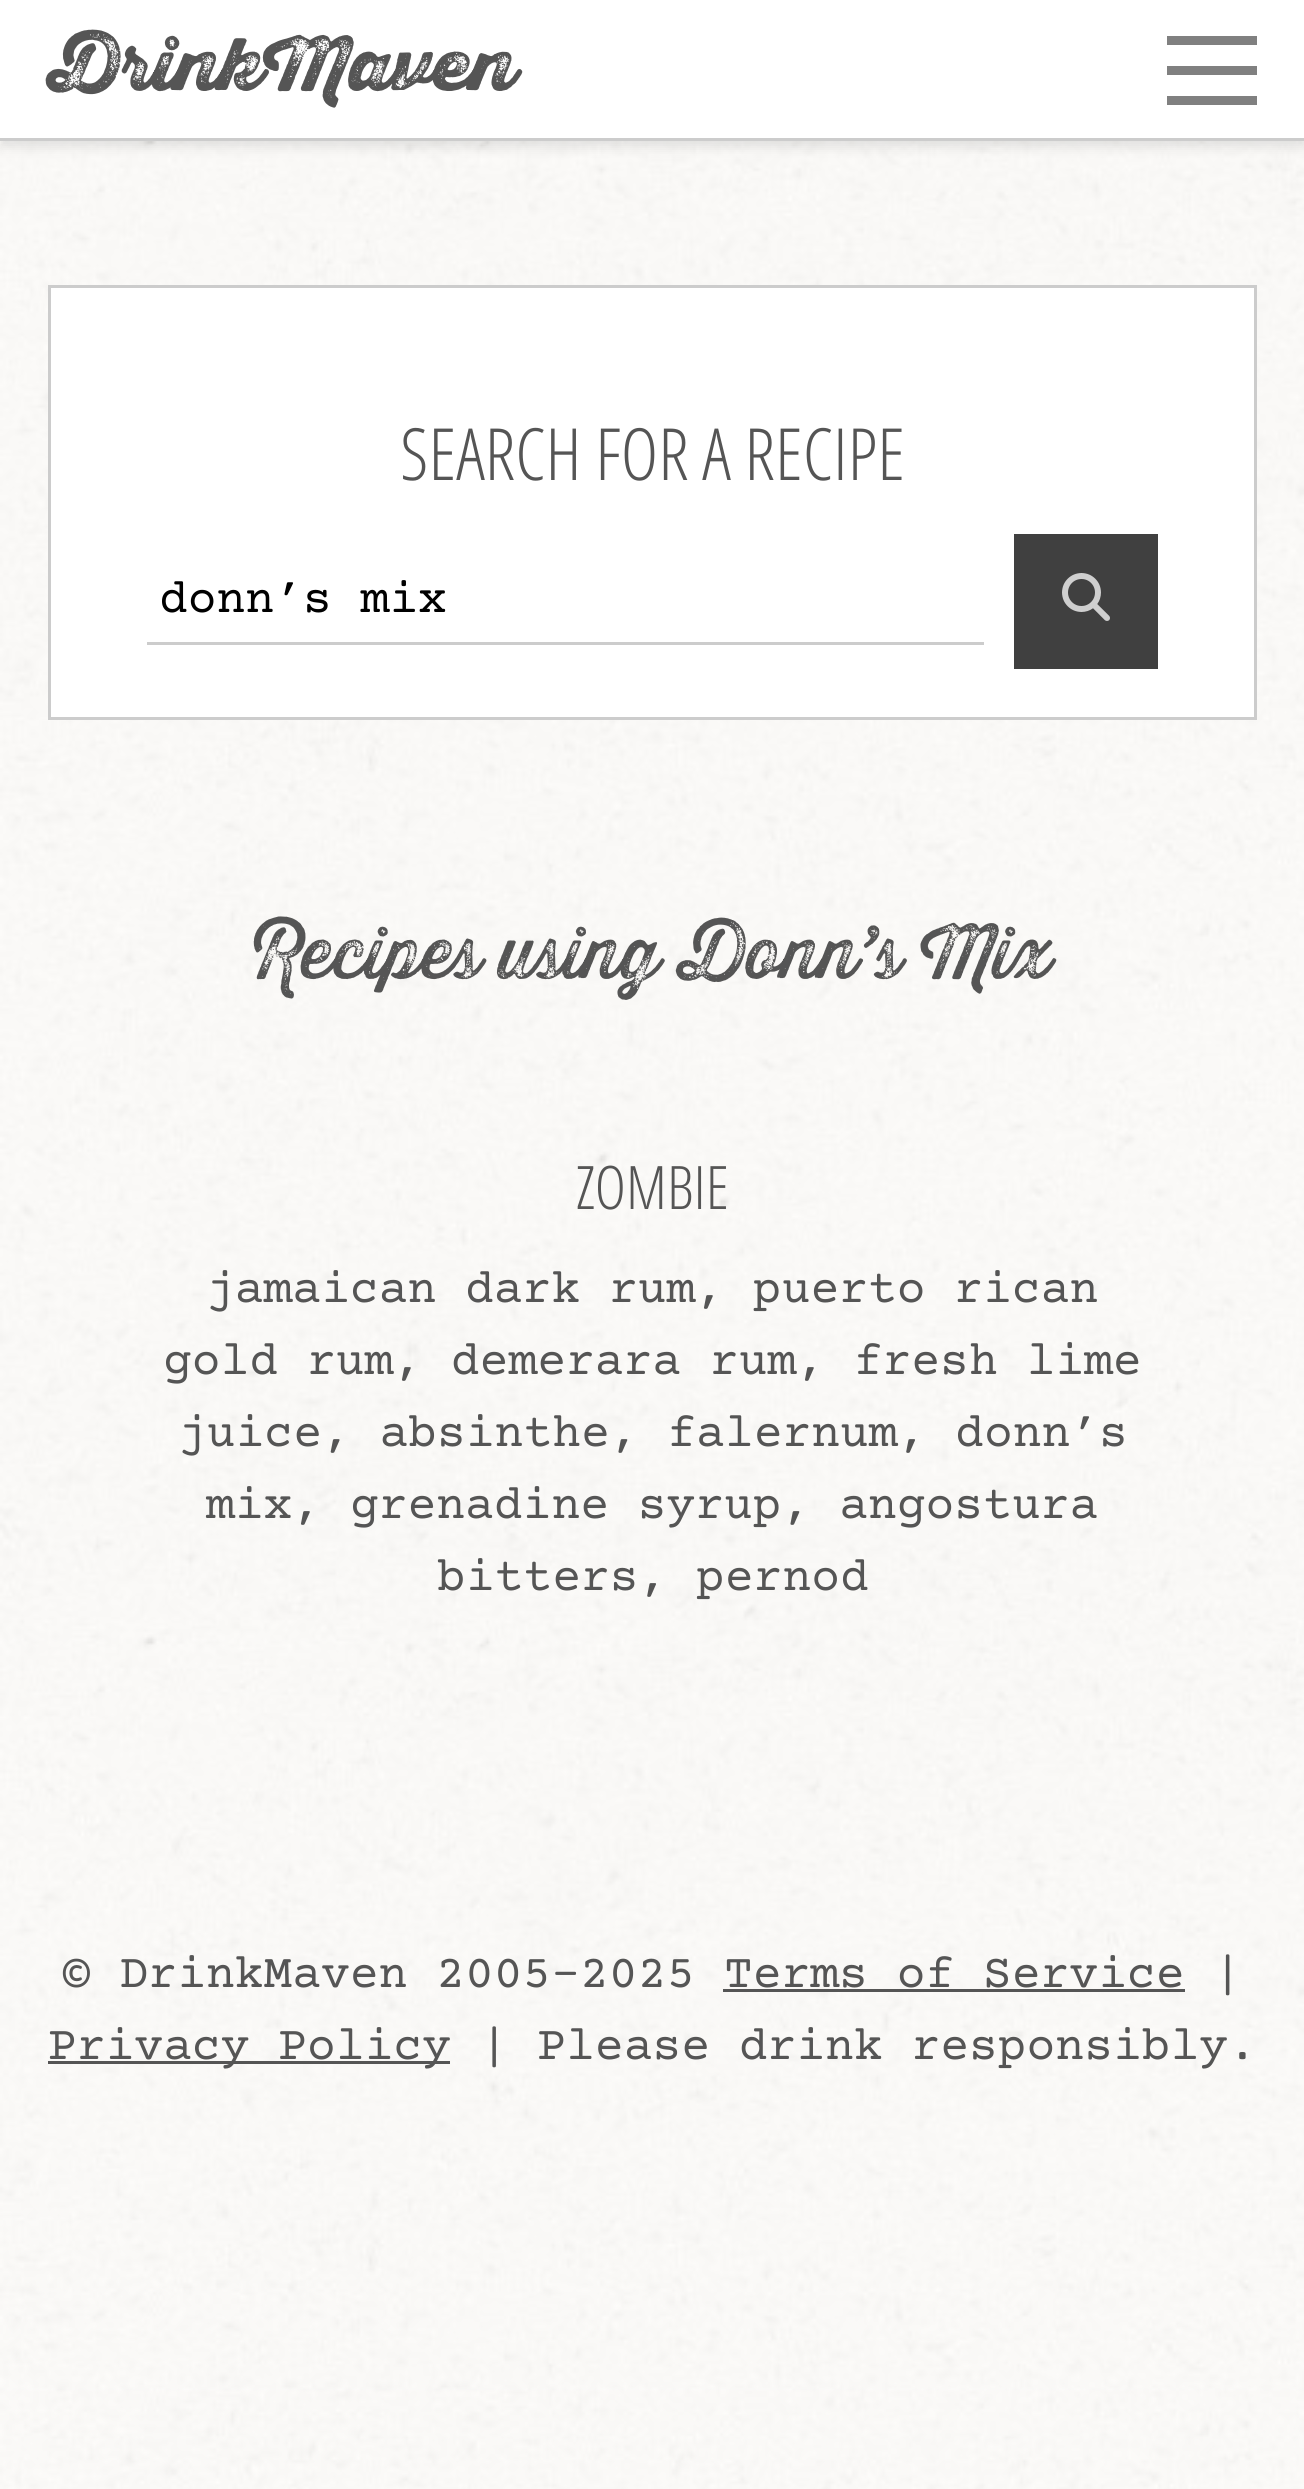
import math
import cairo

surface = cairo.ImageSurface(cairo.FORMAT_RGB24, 1304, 2489)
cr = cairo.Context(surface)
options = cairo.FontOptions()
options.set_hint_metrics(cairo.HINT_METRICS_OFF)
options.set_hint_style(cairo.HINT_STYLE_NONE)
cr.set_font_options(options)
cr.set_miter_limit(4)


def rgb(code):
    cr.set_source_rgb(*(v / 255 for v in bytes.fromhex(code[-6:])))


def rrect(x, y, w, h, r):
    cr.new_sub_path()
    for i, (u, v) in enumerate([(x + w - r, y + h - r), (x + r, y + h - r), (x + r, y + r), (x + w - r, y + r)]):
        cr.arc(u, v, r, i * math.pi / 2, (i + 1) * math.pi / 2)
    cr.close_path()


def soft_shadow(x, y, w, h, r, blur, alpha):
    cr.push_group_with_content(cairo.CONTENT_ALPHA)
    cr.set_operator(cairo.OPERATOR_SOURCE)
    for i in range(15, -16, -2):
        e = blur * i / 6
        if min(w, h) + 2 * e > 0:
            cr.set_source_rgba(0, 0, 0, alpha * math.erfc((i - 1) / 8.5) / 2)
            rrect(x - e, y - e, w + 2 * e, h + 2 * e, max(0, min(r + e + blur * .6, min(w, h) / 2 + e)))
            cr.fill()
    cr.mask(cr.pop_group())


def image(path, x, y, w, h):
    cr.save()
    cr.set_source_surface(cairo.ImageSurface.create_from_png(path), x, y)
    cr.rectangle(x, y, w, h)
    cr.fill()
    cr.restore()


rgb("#ffffff")
cr.paint()
image("img/1.png", 0, 141, 1304, 2348)
rgb("#000000")
soft_shadow(0, 6, 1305, 141, 0, 6, 0.1)
for x, y, w, h, color in [
    (0, 0, 1304, 138, "#ffffff"),
    (0, 138, 1304, 3, "#cccccc"),
    (1167, 36, 90, 9, "#808080"),
    (1167, 66, 90, 9, "#808080"),
    (1167, 96, 90, 9, "#808080"),
]:
    rgb(color)
    cr.rectangle(x, y, w, h)
    cr.fill()
rgb("#ffffff")
cr.rectangle(49.5, 286.5, 1206, 432)
cr.fill_preserve()
rgb("#cccccc")
cr.set_line_width(3)
cr.stroke()
cr.rectangle(147, 642, 837, 3)
cr.fill()
rgb("#404040")
cr.rectangle(1014, 534, 144, 135)
cr.fill()
image("img/2.png", 1062, 573, 48, 48)
rgb("#555555")
cr.rectangle(723, 1989, 462, 3)
cr.fill()
cr.rectangle(48, 2061, 402, 3)
cr.fill()
cr.select_font_face("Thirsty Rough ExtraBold")
cr.set_font_size(72)
cr.move_to(48, 90)
cr.show_text("DrinkMaven")
cr.select_font_face("Open Sans Condensed Light")
cr.move_to(400, 480)
cr.show_text("SEARCH FOR A RECIPE")
cr.select_font_face("Courier Prime")
cr.set_font_size(48)
rgb("#000000")
cr.move_to(159, 612)
cr.show_text("donn’s mix")
cr.select_font_face("Thirsty Rough")
cr.set_font_size(72)
rgb("#555555")
cr.move_to(254, 978)
cr.show_text("Recipes using Donn’s Mix")
cr.select_font_face("Open Sans Condensed Light")
cr.set_font_size(60)
cr.move_to(576, 1209)
cr.show_text("ZOMBIE")
cr.select_font_face("Courier Prime")
cr.set_font_size(48)
for x, y, s in [
    (206, 1302, "jamaican dark rum, puerto rican"),
    (163, 1374, "gold rum, demerara rum, fresh lime"),
    (178, 1446, "juice, absinthe, falernum, donn’s"),
    (206, 1518, "mix, grenadine syrup, angostura"),
    (437, 1590, "bitters, pernod"),
    (62, 1987, "© DrinkMaven 2005-2025 Terms of Service |"),
    (48, 2059, "Privacy Policy | Please drink responsibly."),
]:
    cr.move_to(x, y)
    cr.show_text(s)
surface.write_to_png("page.png")
